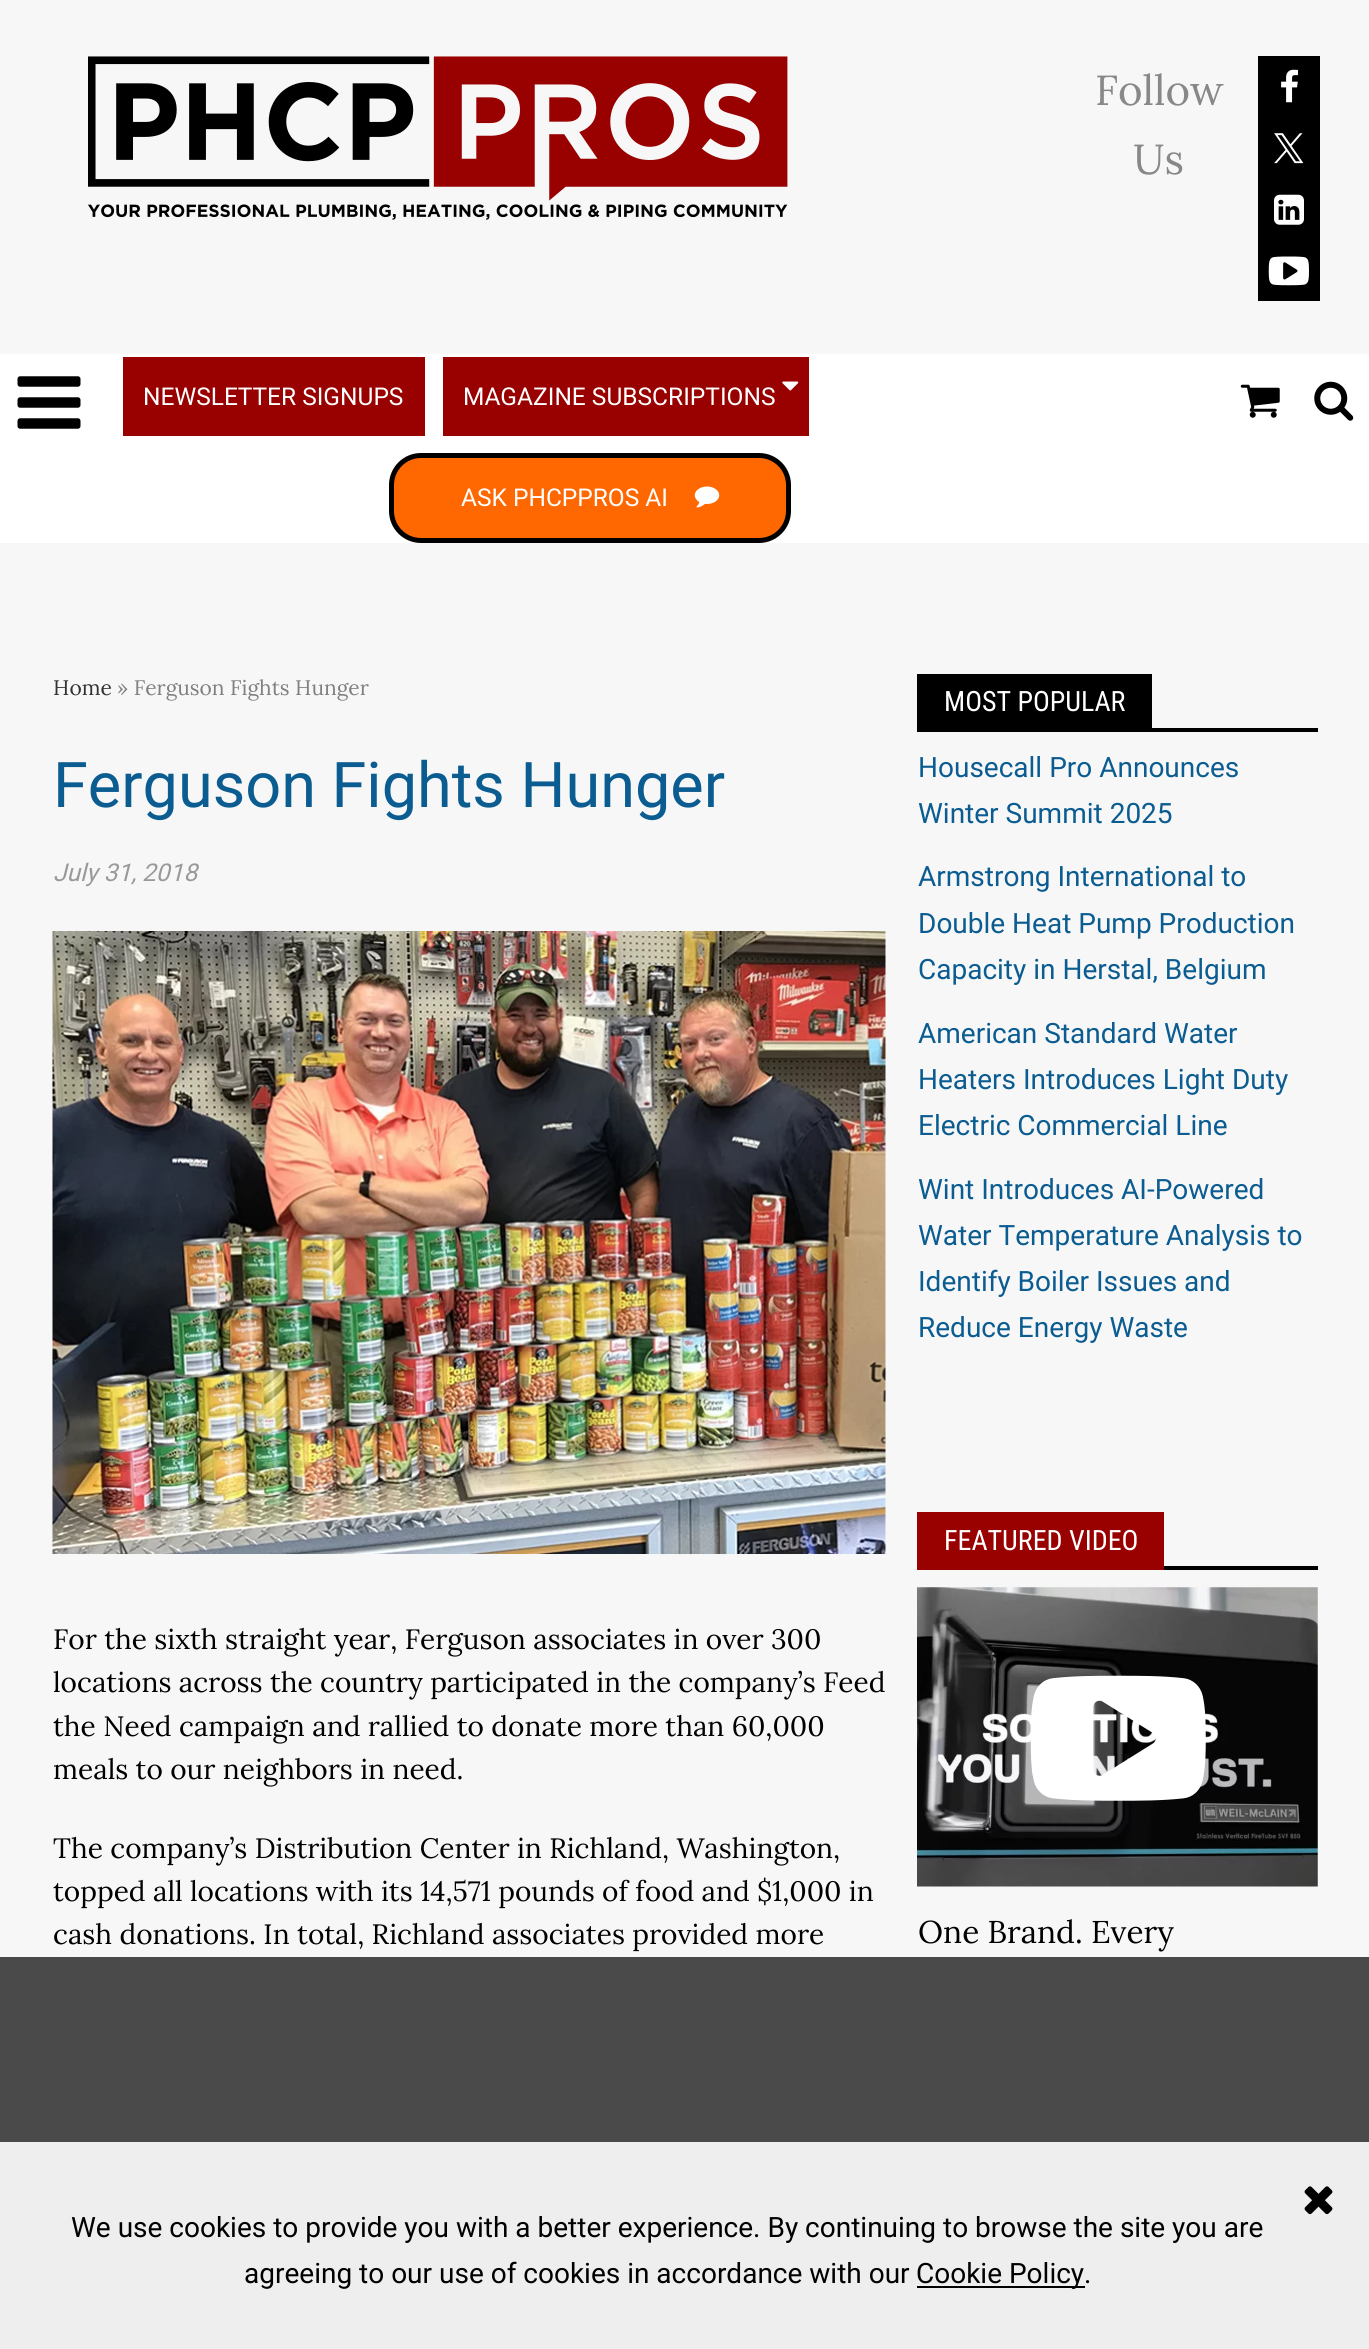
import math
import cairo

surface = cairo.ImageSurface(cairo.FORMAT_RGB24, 1369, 2349)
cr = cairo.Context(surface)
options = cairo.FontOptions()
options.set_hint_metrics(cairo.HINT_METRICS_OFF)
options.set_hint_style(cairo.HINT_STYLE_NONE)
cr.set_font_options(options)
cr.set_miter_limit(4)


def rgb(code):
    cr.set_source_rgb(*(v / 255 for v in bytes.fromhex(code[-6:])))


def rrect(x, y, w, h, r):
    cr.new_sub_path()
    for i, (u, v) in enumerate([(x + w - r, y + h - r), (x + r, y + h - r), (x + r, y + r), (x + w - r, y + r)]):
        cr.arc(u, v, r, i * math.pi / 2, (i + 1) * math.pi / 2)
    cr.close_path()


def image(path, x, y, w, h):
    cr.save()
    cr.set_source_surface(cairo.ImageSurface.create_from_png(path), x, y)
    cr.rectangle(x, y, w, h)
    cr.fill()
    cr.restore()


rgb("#f7f7f7")
cr.paint()
image("img/1.png", 88, 56, 700, 164)
rgb("#000000")
cr.rectangle(1258, 56, 62, 245)
cr.fill()
image("img/2.png", 1281, 69, 17, 34)
image("img/3.png", 1274, 133, 30, 31)
image("img/4.png", 1274, 194, 30, 31)
image("img/5.png", 1268, 256, 41, 30)
rgb("#ffffff")
cr.rectangle(0, 354, 1369, 189)
cr.fill()
image("img/6.png", 17, 376, 64, 53)
rgb("#990000")
cr.rectangle(123, 357, 302, 79)
cr.fill()
cr.rectangle(443, 357, 366, 79)
cr.fill()
image("img/7.png", 782, 381, 17, 10)
rgb("#ff6700")
rrect(391.5, 455.5, 397, 85, 29.5)
cr.fill_preserve()
rgb("#000000")
cr.set_line_width(5)
cr.stroke()
image("img/8.png", 694, 486, 26, 22)
image("img/9.png", 1240, 384, 40, 34)
image("img/10.png", 1314, 381, 40, 40)
rgb("#fdfdfd")
cr.rectangle(885, 931, 1, 623)
cr.fill()
image("img/11.png", 52, 931, 834, 623)
for x, y, w, h, color in [
    (917, 674, 235, 58, "#000000"),
    (1152, 728, 166, 4, "#000000"),
    (1164, 1566, 154, 4, "#000000"),
    (917, 1512, 247, 58, "#990000"),
]:
    rgb(color)
    cr.rectangle(x, y, w, h)
    cr.fill()
image("img/12.png", 917, 1587, 401, 300)
image("img/13.png", 1030, 1675, 176, 126)
cr.set_source_rgba(0, 0, 0, 0.7)
cr.rectangle(0, 1957, 1369, 185)
cr.fill()
rgb("#eeeeee")
cr.rectangle(0, 2142, 1369, 207)
cr.fill()
image("img/14.png", 1304, 2186, 29, 29)
rgb("#000000")
cr.rectangle(917, 2286, 168, 2)
cr.fill()
cr.select_font_face("Lora")
cr.set_font_size(42)
rgb("#888888")
cr.move_to(1095, 105)
cr.show_text("Follow")
cr.move_to(1133, 174)
cr.show_text("Us")
cr.select_font_face("Roboto")
cr.set_font_size(24.5)
rgb("#ffffff")
for x, y, s in [
    (143, 405, "NEWSLETTER SIGNUPS"),
    (463, 405, "MAGAZINE SUBSCRIPTIONS"),
    (461, 506, "ASK PHCPPROS AI"),
]:
    cr.move_to(x, y)
    cr.show_text(s)
cr.select_font_face("Lora")
cr.set_font_size(21)
rgb("#333333")
cr.move_to(53, 695)
cr.show_text("Home")
rgb("#808080")
cr.move_to(117, 695)
cr.show_text("» Ferguson Fights Hunger")
cr.select_font_face("Roboto")
cr.set_font_size(63)
rgb("#0b5c91")
cr.move_to(53, 807)
cr.show_text("Ferguson Fights Hunger")
cr.select_font_face("Roboto", cairo.FONT_SLANT_ITALIC)
cr.set_font_size(24.5)
rgb("#999999")
cr.move_to(53, 881)
cr.show_text("July 31, 2018")
cr.select_font_face("Lora")
cr.set_font_size(28)
rgb("#000000")
for x, y, s in [
    (53, 1649, "For the sixth straight year, Ferguson associates in over 300"),
    (53, 1692, "locations across the country participated in the company’s Feed"),
    (53, 1736, "the Need campaign and rallied to donate more than 60,000"),
    (53, 1779, "meals to our neighbors in need."),
    (53, 1858, "The company’s Distribution Center in Richland, Washington,"),
    (53, 1901, "topped all locations with its 14,571 pounds of food and $1,000 in"),
    (53, 1944, "cash donations. In total, Richland associates provided more"),
]:
    cr.move_to(x, y)
    cr.show_text(s)
cr.select_font_face("Roboto Condensed")
rgb("#ffffff")
cr.move_to(944, 711)
cr.show_text("MOST POPULAR")
cr.select_font_face("Roboto")
rgb("#0b5c91")
for x, y, s in [
    (918, 777, "Housecall Pro Announces"),
    (918, 823, "Winter Summit 2025"),
    (918, 886, "Armstrong International to"),
    (918, 933, "Double Heat Pump Production"),
    (918, 979, "Capacity in Herstal, Belgium"),
    (918, 1043, "American Standard Water"),
    (918, 1089, "Heaters Introduces Light Duty"),
    (918, 1135, "Electric Commercial Line"),
    (918, 1199, "Wint Introduces AI-Powered"),
    (918, 1245, "Water Temperature Analysis to"),
    (918, 1291, "Identify Boiler Issues and"),
    (918, 1337, "Reduce Energy Waste"),
]:
    cr.move_to(x, y)
    cr.show_text(s)
cr.select_font_face("Roboto Condensed")
rgb("#ffffff")
cr.move_to(944, 1550)
cr.show_text("FEATURED VIDEO")
cr.select_font_face("Lora")
cr.set_font_size(31.5)
rgb("#000000")
cr.move_to(918, 1943)
cr.show_text("One Brand. Every")
cr.select_font_face("Roboto")
cr.set_font_size(28)
for x, y, s in [
    (71, 2237, "We use cookies to provide you with a better experience. By continuing to browse the site you are"),
    (244, 2283, "agreeing to our use of cookies in accordance with our"),
    (916, 2283, "Cookie Policy."),
]:
    cr.move_to(x, y)
    cr.show_text(s)
surface.write_to_png("page.png")
